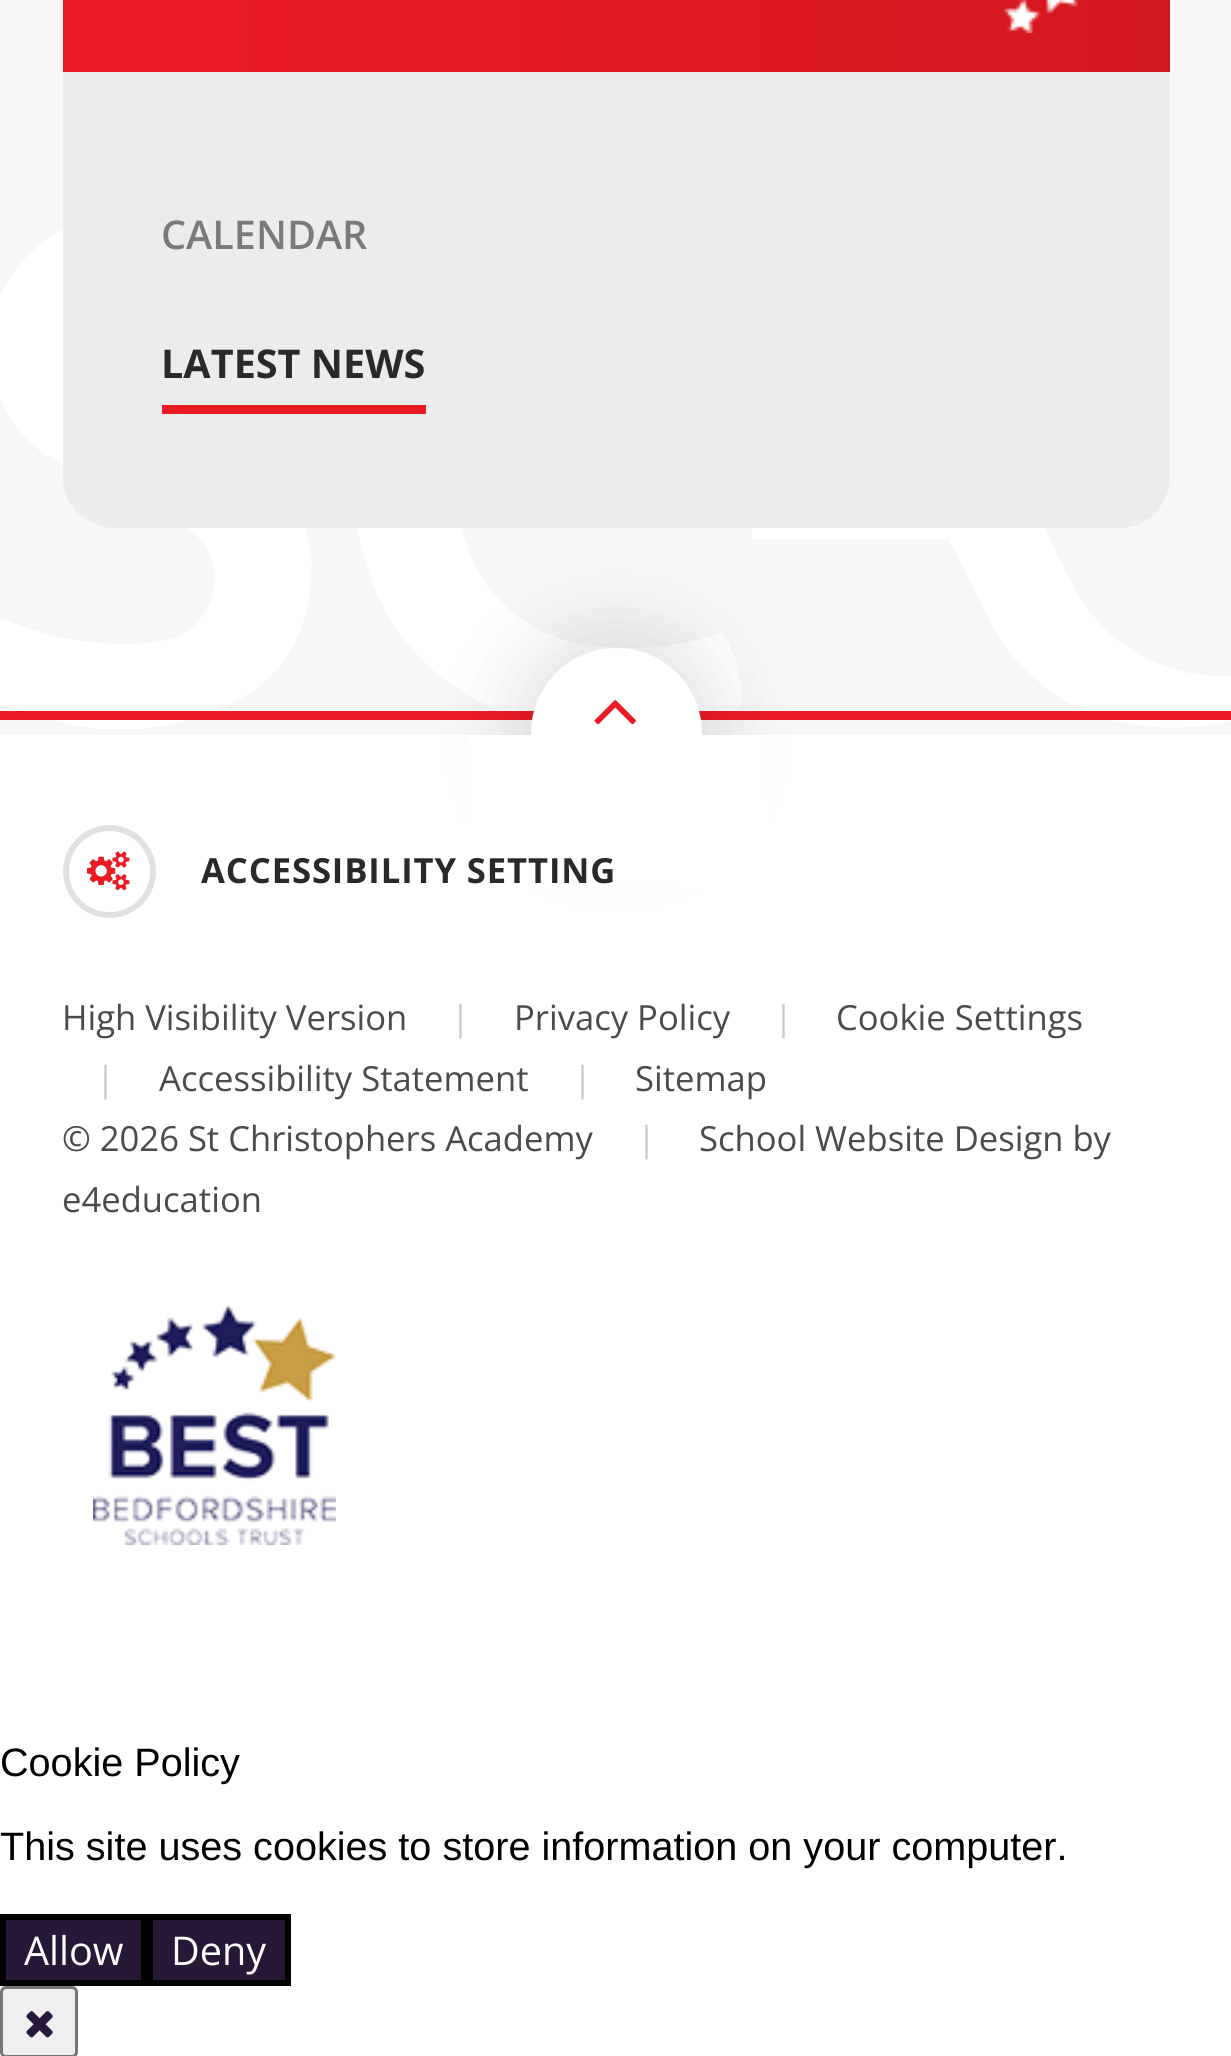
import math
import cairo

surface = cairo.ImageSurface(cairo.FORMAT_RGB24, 1231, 2056)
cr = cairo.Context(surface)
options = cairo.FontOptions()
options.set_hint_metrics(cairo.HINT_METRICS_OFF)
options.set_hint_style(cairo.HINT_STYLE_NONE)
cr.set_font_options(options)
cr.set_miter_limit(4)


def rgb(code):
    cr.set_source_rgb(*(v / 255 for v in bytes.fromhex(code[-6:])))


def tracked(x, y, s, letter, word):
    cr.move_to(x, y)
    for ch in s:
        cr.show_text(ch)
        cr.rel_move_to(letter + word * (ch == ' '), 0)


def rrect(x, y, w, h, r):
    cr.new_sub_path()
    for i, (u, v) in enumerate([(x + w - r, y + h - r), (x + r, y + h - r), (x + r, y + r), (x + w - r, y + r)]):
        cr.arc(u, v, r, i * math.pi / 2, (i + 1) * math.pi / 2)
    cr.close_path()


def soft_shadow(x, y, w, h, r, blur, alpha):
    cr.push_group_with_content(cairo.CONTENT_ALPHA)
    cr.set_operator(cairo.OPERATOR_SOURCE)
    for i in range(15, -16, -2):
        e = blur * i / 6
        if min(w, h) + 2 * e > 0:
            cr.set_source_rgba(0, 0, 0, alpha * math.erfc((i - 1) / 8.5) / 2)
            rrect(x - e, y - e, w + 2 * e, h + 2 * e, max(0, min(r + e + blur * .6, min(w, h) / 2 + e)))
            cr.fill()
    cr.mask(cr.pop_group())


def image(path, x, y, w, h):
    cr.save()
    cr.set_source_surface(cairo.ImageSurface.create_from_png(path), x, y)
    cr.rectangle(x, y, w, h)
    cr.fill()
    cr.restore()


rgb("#ffffff")
cr.paint()
image("img/2.png", 0, 0, 1231, 735)
gradient = cairo.LinearGradient(63, -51, 1170, -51)
gradient.add_color_stop_rgba(0, 0.922, 0.106, 0.141, 1)
gradient.add_color_stop_rgba(1, 0.831, 0.094, 0.125, 1)
cr.set_source(gradient)
cr.rectangle(63, 0, 1107, 72)
cr.fill()
image("img/1.png", 1004, 0, 74, 33)
rgb("#eb1b24")
cr.rectangle(0, 711, 1231, 9)
cr.fill()
rgb("#000000")
soft_shadow(507, 624, 219, 222, 109.5, 36, 0.1)
rgb("#ececec")
cr.new_path()
cr.move_to(63, 72)
cr.line_to(1170, 72)
cr.line_to(1170, 477)
cr.curve_to(1170, 505, 1147, 528, 1119, 528)
cr.line_to(114, 528)
cr.curve_to(86, 528, 63, 505, 63, 477)
cr.close_path()
cr.fill()
rgb("#eb1b24")
cr.rectangle(162, 405, 264, 9)
cr.fill()
rgb("#ffffff")
rrect(531, 648, 171, 174, 85.5)
cr.fill()
image("img/3.png", 594, 700, 42, 25)
cr.rectangle(466, 735, 301, 152)
cr.fill()
cr.arc(109.5, 871.5, 43.5, 0, 2 * math.pi)
rgb("#e1e1e1")
cr.set_line_width(6)
cr.stroke()
image("img/4.png", 87, 851, 43, 40)
image("img/5.png", 93, 1305, 243, 240)
rgb("#281838")
cr.rectangle(3, 1917, 141, 66)
cr.fill_preserve()
rgb("#000000")
cr.stroke()
rgb("#281838")
cr.rectangle(150, 1917, 138, 66)
cr.fill_preserve()
rgb("#000000")
cr.stroke()
rgb("#efefef")
rrect(1.5, 1987.5, 75, 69, 4.5)
cr.fill_preserve()
rgb("#767676")
cr.set_line_width(3)
cr.stroke()
image("img/6.png", 26, 2011, 27, 27)
cr.select_font_face("Open Sans SemiBold")
cr.set_font_size(39.6)
rgb("#7a7a7a")
cr.move_to(161, 249)
cr.show_text("CALENDAR")
cr.select_font_face("Open Sans", cairo.FONT_SLANT_NORMAL, cairo.FONT_WEIGHT_BOLD)
rgb("#292929")
cr.move_to(161, 378)
cr.show_text("LATEST NEWS")
cr.set_font_size(34.6)
tracked(201, 883, "ACCESSIBILITY SETTING", 0.9, 0)
cr.select_font_face("Open Sans")
rgb("#4b4b4b")
cr.move_to(62, 1030)
cr.show_text("High Visibility Version")
rgb("#cacaca")
cr.move_to(451, 1030)
cr.show_text("|")
rgb("#4b4b4b")
cr.move_to(514, 1030)
cr.show_text("Privacy Policy")
rgb("#cacaca")
cr.move_to(774, 1030)
cr.show_text("|")
rgb("#4b4b4b")
cr.move_to(836, 1030)
cr.show_text("Cookie Settings")
rgb("#cacaca")
cr.move_to(96, 1091)
cr.show_text("|")
rgb("#4b4b4b")
cr.move_to(159, 1091)
cr.show_text("Accessibility Statement")
rgb("#cacaca")
cr.move_to(573, 1091)
cr.show_text("|")
rgb("#4b4b4b")
cr.move_to(635, 1091)
cr.show_text("Sitemap")
cr.move_to(62, 1151)
cr.show_text("© 2026 St Christophers Academy")
rgb("#cacaca")
cr.move_to(637, 1151)
cr.show_text("|")
rgb("#4b4b4b")
cr.move_to(699, 1151)
cr.show_text("School Website Design by")
cr.move_to(62, 1212)
cr.show_text("e4education")
cr.select_font_face("Liberation Sans")
cr.set_font_size(39.6)
rgb("#000000")
cr.move_to(0, 1776)
cr.show_text("Cookie Policy")
cr.move_to(0, 1860)
cr.show_text("This site uses cookies to store information on your computer.")
cr.select_font_face("Open Sans")
rgb("#ffffff")
cr.move_to(24, 1965)
cr.show_text("Allow")
cr.move_to(171, 1965)
cr.show_text("Deny")
surface.write_to_png("page.png")
